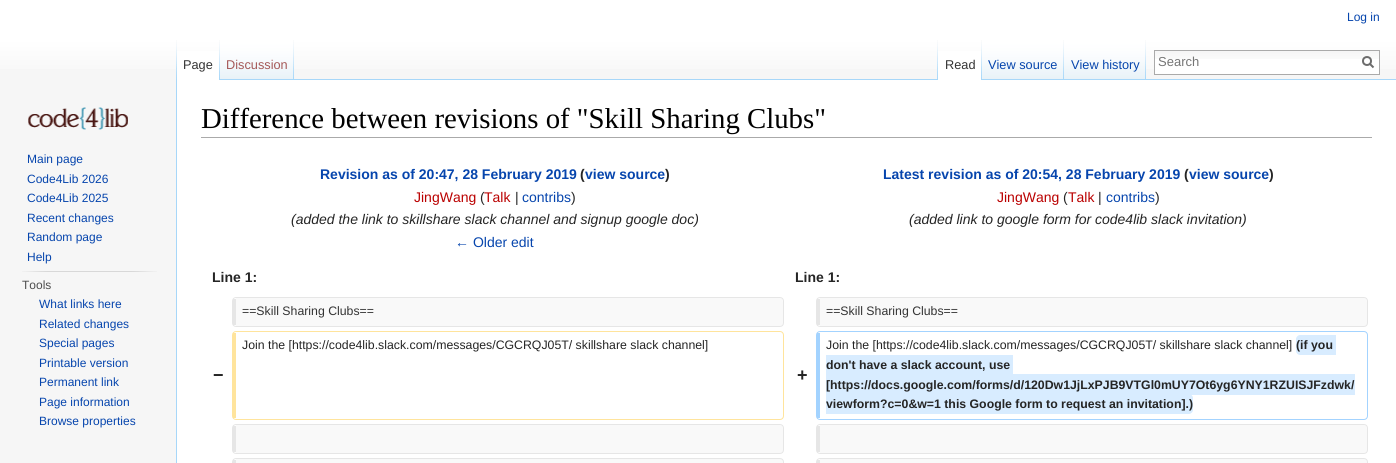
import math
import cairo

surface = cairo.ImageSurface(cairo.FORMAT_RGB24, 1396, 463)
cr = cairo.Context(surface)
options = cairo.FontOptions()
options.set_hint_metrics(cairo.HINT_METRICS_OFF)
options.set_hint_style(cairo.HINT_STYLE_NONE)
cr.set_font_options(options)
cr.set_miter_limit(4)


def rgb(code):
    cr.set_source_rgb(*(v / 255 for v in bytes.fromhex(code[-6:])))


def rrect(x, y, w, h, r):
    cr.new_sub_path()
    for i, (u, v) in enumerate([(x + w - r, y + h - r), (x + r, y + h - r), (x + r, y + r), (x + w - r, y + r)]):
        cr.arc(u, v, r, i * math.pi / 2, (i + 1) * math.pi / 2)
    cr.close_path()


def image(path, x, y, w, h):
    cr.save()
    cr.set_source_surface(cairo.ImageSurface.create_from_png(path), x, y)
    cr.rectangle(x, y, w, h)
    cr.fill()
    cr.restore()


rgb("#f6f6f6")
cr.paint()
gradient = cairo.LinearGradient(698, 0, 698, 80)
gradient.add_color_stop_rgba(0.5, 1, 1, 1, 1)
gradient.add_color_stop_rgba(1, 0.965, 0.965, 0.965, 1)
cr.set_source(gradient)
cr.rectangle(0, 0, 1396, 69)
cr.fill()
image("img/1.png", 176, 40, 1, 39)
rgb("#ffffff")
cr.rectangle(177, 51, 42, 29)
cr.fill()
image("img/2.png", 219, 40, 1, 40)
image("img/3.png", 220, 40, 74, 40)
image("img/4.png", 293, 40, 1, 39)
image("img/1.png", 937, 40, 1, 39)
rgb("#a7d7f9")
cr.rectangle(294, 79, 1102, 1)
cr.fill()
rgb("#ffffff")
cr.rectangle(938, 51, 43, 29)
cr.fill()
image("img/2.png", 981, 40, 1, 40)
image("img/5.png", 982, 40, 82, 40)
image("img/4.png", 1063, 40, 1, 39)
image("img/5.png", 1064, 40, 82, 40)
image("img/4.png", 1145, 40, 1, 39)
cr.rectangle(1155, 59, 224, 15)
cr.fill()
image("img/6.png", 1155, 51, 224, 8)
cr.rectangle(1154.5, 50.5, 225, 24)
rgb("#aaaaaa")
cr.set_line_width(1)
cr.stroke()
cr.new_path()
cr.move_to(1373.5, 67.5)
cr.line_to(1369.5, 63.5)
rgb("#6c6c6c")
cr.set_line_width(2)
cr.stroke()
cr.arc(1367, 61, 4, 0, 2 * math.pi)
cr.stroke()
image("img/7.png", 28, 107, 100, 23)
image("img/8.png", 22, 271, 135, 1)
for x, y, w, h, color in [
    (177, 80, 1219, 383, "#ffffff"),
    (176, 79, 1, 384, "#a7d7f9"),
    (201, 137, 1171, 1, "#aaaaaa"),
]:
    rgb(color)
    cr.rectangle(x, y, w, h)
    cr.fill()
rgb("#f9f9f9")
cr.new_path()
cr.move_to(236, 298)
cr.line_to(780, 298)
cr.line_to(782, 299)
cr.curve_to(784, 301, 783, 313, 783, 316)
cr.curve_to(783, 318, 785, 326, 780, 326)
cr.line_to(236, 326)
cr.close_path()
cr.fill()
rrect(232.5, 297.5, 551, 29, 3.5)
rgb("#e6e6e6")
cr.set_line_width(1)
cr.stroke()
cr.rectangle(233, 299, 3, 26)
cr.fill()
rgb("#f9f9f9")
cr.new_path()
cr.move_to(820, 298)
cr.line_to(1364, 298)
cr.line_to(1366, 299)
cr.curve_to(1368, 301, 1367, 313, 1367, 316)
cr.curve_to(1367, 318, 1369, 326, 1364, 326)
cr.line_to(820, 326)
cr.close_path()
cr.fill()
rrect(816.5, 297.5, 551, 29, 3.5)
rgb("#e6e6e6")
cr.stroke()
cr.rectangle(817, 299, 3, 26)
cr.fill()
rrect(232.5, 331.5, 551, 88, 3.5)
rgb("#ffe49c")
cr.stroke()
cr.rectangle(233, 333, 3, 85)
cr.fill()
rrect(816.5, 331.5, 551, 88, 3.5)
rgb("#a3d3ff")
cr.stroke()
cr.rectangle(817, 333, 3, 85)
cr.fill()
rgb("#d8ecff")
cr.new_path()
cr.move_to(1300, 335)
cr.line_to(1333, 335)
cr.line_to(1333, 355)
cr.line_to(1300, 355)
cr.curve_to(1298, 355, 1296, 353, 1296, 351)
cr.line_to(1296, 339)
cr.curve_to(1296, 337, 1298, 335, 1300, 335)
cr.close_path()
cr.fill()
for x, y, w, h, color in [
    (1333, 335, 3, 20, "#d8ecff"),
    (826, 355, 184, 19, "#d8ecff"),
    (1010, 355, 3, 20, "#d8ecff"),
    (826, 374, 529, 21, "#d8ecff"),
]:
    rgb(color)
    cr.rectangle(x, y, w, h)
    cr.fill()
cr.new_path()
cr.move_to(826, 394)
cr.line_to(1189, 394)
cr.curve_to(1191, 394, 1193, 396, 1193, 398)
cr.line_to(1193, 410)
cr.curve_to(1193, 412, 1191, 414, 1189, 414)
cr.line_to(826, 414)
cr.close_path()
cr.fill()
rgb("#f9f9f9")
cr.new_path()
cr.move_to(236, 425)
cr.line_to(780, 425)
cr.line_to(782, 426)
cr.curve_to(784, 428, 783, 440, 783, 443)
cr.curve_to(783, 445, 785, 453, 780, 453)
cr.line_to(236, 453)
cr.close_path()
cr.fill()
rrect(232.5, 424.5, 551, 29, 3.5)
rgb("#e6e6e6")
cr.stroke()
cr.rectangle(233, 426, 3, 26)
cr.fill()
rgb("#f9f9f9")
cr.new_path()
cr.move_to(820, 425)
cr.line_to(1364, 425)
cr.line_to(1366, 426)
cr.curve_to(1368, 428, 1367, 440, 1367, 443)
cr.curve_to(1367, 445, 1369, 453, 1364, 453)
cr.line_to(820, 453)
cr.close_path()
cr.fill()
rrect(816.5, 424.5, 551, 29, 3.5)
rgb("#e6e6e6")
cr.stroke()
cr.rectangle(817, 426, 3, 26)
cr.fill()
rgb("#f9f9f9")
cr.new_path()
cr.move_to(236, 459)
cr.line_to(780, 459)
cr.curve_to(782, 459, 783, 460, 783, 462)
cr.line_to(783, 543)
cr.curve_to(783, 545, 782, 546, 780, 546)
cr.line_to(236, 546)
cr.close_path()
cr.fill()
rrect(232.5, 458.5, 551, 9, 3.5)
rgb("#e6e6e6")
cr.stroke()
cr.rectangle(233, 460, 3, 3)
cr.fill()
rgb("#f9f9f9")
cr.new_path()
cr.move_to(820, 459)
cr.line_to(1364, 459)
cr.curve_to(1366, 459, 1367, 460, 1367, 462)
cr.line_to(1367, 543)
cr.curve_to(1367, 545, 1366, 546, 1364, 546)
cr.line_to(820, 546)
cr.close_path()
cr.fill()
rrect(816.5, 458.5, 551, 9, 3.5)
rgb("#e6e6e6")
cr.stroke()
cr.rectangle(817, 460, 3, 3)
cr.fill()
cr.select_font_face("Liberation Sans")
cr.set_font_size(12)
rgb("#0645ad")
cr.move_to(1347, 21)
cr.show_text("Log in")
cr.set_font_size(12.75)
rgb("#333333")
cr.move_to(183, 69)
cr.show_text("Page")
rgb("#a55858")
cr.move_to(226, 69)
cr.show_text("Discussion")
rgb("#333333")
cr.move_to(945, 69)
cr.show_text("Read")
rgb("#0645ad")
cr.move_to(988, 69)
cr.show_text("View source")
cr.move_to(1071, 69)
cr.show_text("View history")
cr.set_font_size(13)
rgb("#757575")
cr.move_to(1158, 66)
cr.show_text("Search")
cr.set_font_size(12)
rgb("#0645ad")
for x, y, s in [
    (27, 163, "Main page"),
    (27, 183, "Code4Lib 2026"),
    (27, 202, "Code4Lib 2025"),
    (27, 222, "Recent changes"),
    (27, 241, "Random page"),
    (27, 261, "Help"),
]:
    cr.move_to(x, y)
    cr.show_text(s)
rgb("#4d4d4d")
cr.move_to(22, 289)
cr.show_text("Tools")
rgb("#0645ad")
for x, y, s in [
    (39, 308, "What links here"),
    (39, 328, "Related changes"),
    (39, 347, "Special pages"),
    (39, 367, "Printable version"),
    (39, 386, "Permanent link"),
    (39, 406, "Page information"),
    (39, 425, "Browse properties"),
]:
    cr.move_to(x, y)
    cr.show_text(s)
cr.select_font_face("Liberation Serif")
cr.set_font_size(28.8)
rgb("#000000")
cr.move_to(201, 128)
cr.show_text("Difference between revisions of \"Skill Sharing Clubs\"")
cr.select_font_face("Liberation Sans", cairo.FONT_SLANT_NORMAL, cairo.FONT_WEIGHT_BOLD)
cr.set_font_size(14)
rgb("#0645ad")
cr.move_to(320, 179)
cr.show_text("Revision as of 20:47, 28 February 2019")
rgb("#252525")
cr.move_to(580, 179)
cr.show_text("(")
rgb("#0645ad")
cr.move_to(585, 179)
cr.show_text("view source")
rgb("#252525")
cr.move_to(665, 179)
cr.show_text(")")
cr.select_font_face("Liberation Sans")
rgb("#ba0000")
cr.move_to(414, 202)
cr.show_text("JingWang")
rgb("#252525")
cr.move_to(480, 202)
cr.show_text("(")
rgb("#ba0000")
cr.move_to(484, 202)
cr.show_text("Talk")
rgb("#252525")
cr.move_to(515, 202)
cr.show_text("|")
rgb("#0645ad")
cr.move_to(522, 202)
cr.show_text("contribs")
rgb("#252525")
cr.move_to(571, 202)
cr.show_text(")")
cr.select_font_face("Liberation Sans", cairo.FONT_SLANT_ITALIC)
cr.move_to(291, 224)
cr.show_text("(added the link to skillshare slack channel and signup google doc)")
cr.select_font_face("Liberation Sans")
rgb("#0645ad")
cr.move_to(455, 247)
cr.show_text("← Older edit")
cr.select_font_face("Liberation Sans", cairo.FONT_SLANT_NORMAL, cairo.FONT_WEIGHT_BOLD)
cr.move_to(883, 179)
cr.show_text("Latest revision as of 20:54, 28 February 2019")
rgb("#252525")
cr.move_to(1184, 179)
cr.show_text("(")
rgb("#0645ad")
cr.move_to(1189, 179)
cr.show_text("view source")
rgb("#252525")
cr.move_to(1269, 179)
cr.show_text(")")
cr.select_font_face("Liberation Sans")
rgb("#ba0000")
cr.move_to(997, 202)
cr.show_text("JingWang")
rgb("#252525")
cr.move_to(1063, 202)
cr.show_text("(")
rgb("#ba0000")
cr.move_to(1068, 202)
cr.show_text("Talk")
rgb("#252525")
cr.move_to(1098, 202)
cr.show_text("|")
rgb("#0645ad")
cr.move_to(1106, 202)
cr.show_text("contribs")
rgb("#252525")
cr.move_to(1155, 202)
cr.show_text(")")
cr.select_font_face("Liberation Sans", cairo.FONT_SLANT_ITALIC)
cr.move_to(909, 224)
cr.show_text("(added link to google form for code4lib slack invitation)")
cr.select_font_face("Liberation Sans", cairo.FONT_SLANT_NORMAL, cairo.FONT_WEIGHT_BOLD)
cr.move_to(212, 282)
cr.show_text("Line 1:")
cr.move_to(795, 282)
cr.show_text("Line 1:")
cr.select_font_face("Liberation Sans")
cr.set_font_size(12.3)
rgb("#333333")
cr.move_to(242, 315)
cr.show_text("==Skill Sharing Clubs==")
cr.move_to(826, 315)
cr.show_text("==Skill Sharing Clubs==")
cr.select_font_face("Liberation Sans", cairo.FONT_SLANT_NORMAL, cairo.FONT_WEIGHT_BOLD)
cr.set_font_size(18)
rgb("#252525")
cr.move_to(213, 381)
cr.show_text("−")
cr.select_font_face("Liberation Sans")
cr.set_font_size(12.3)
cr.move_to(242, 349)
cr.show_text("Join the [https://code4lib.slack.com/messages/CGCRQJ05T/ skillshare slack channel]")
cr.select_font_face("Liberation Sans", cairo.FONT_SLANT_NORMAL, cairo.FONT_WEIGHT_BOLD)
cr.set_font_size(18)
cr.move_to(797, 381)
cr.show_text("+")
cr.select_font_face("Liberation Sans")
cr.set_font_size(12.3)
cr.move_to(826, 349)
cr.show_text("Join the [https://code4lib.slack.com/messages/CGCRQJ05T/ skillshare slack channel]")
cr.select_font_face("Liberation Sans", cairo.FONT_SLANT_NORMAL, cairo.FONT_WEIGHT_BOLD)
for x, y, s in [
    (1296, 349, "(if you"),
    (826, 369, "don't have a slack account, use"),
    (826, 389, "[https://docs.google.com/forms/d/120Dw1JjLxPJB9VTGl0mUY7Ot6yg6YNY1RZUISJFzdwk/"),
    (826, 408, "viewform?c=0&w=1 this Google form to request an invitation].)"),
]:
    cr.move_to(x, y)
    cr.show_text(s)
surface.write_to_png("page.png")
